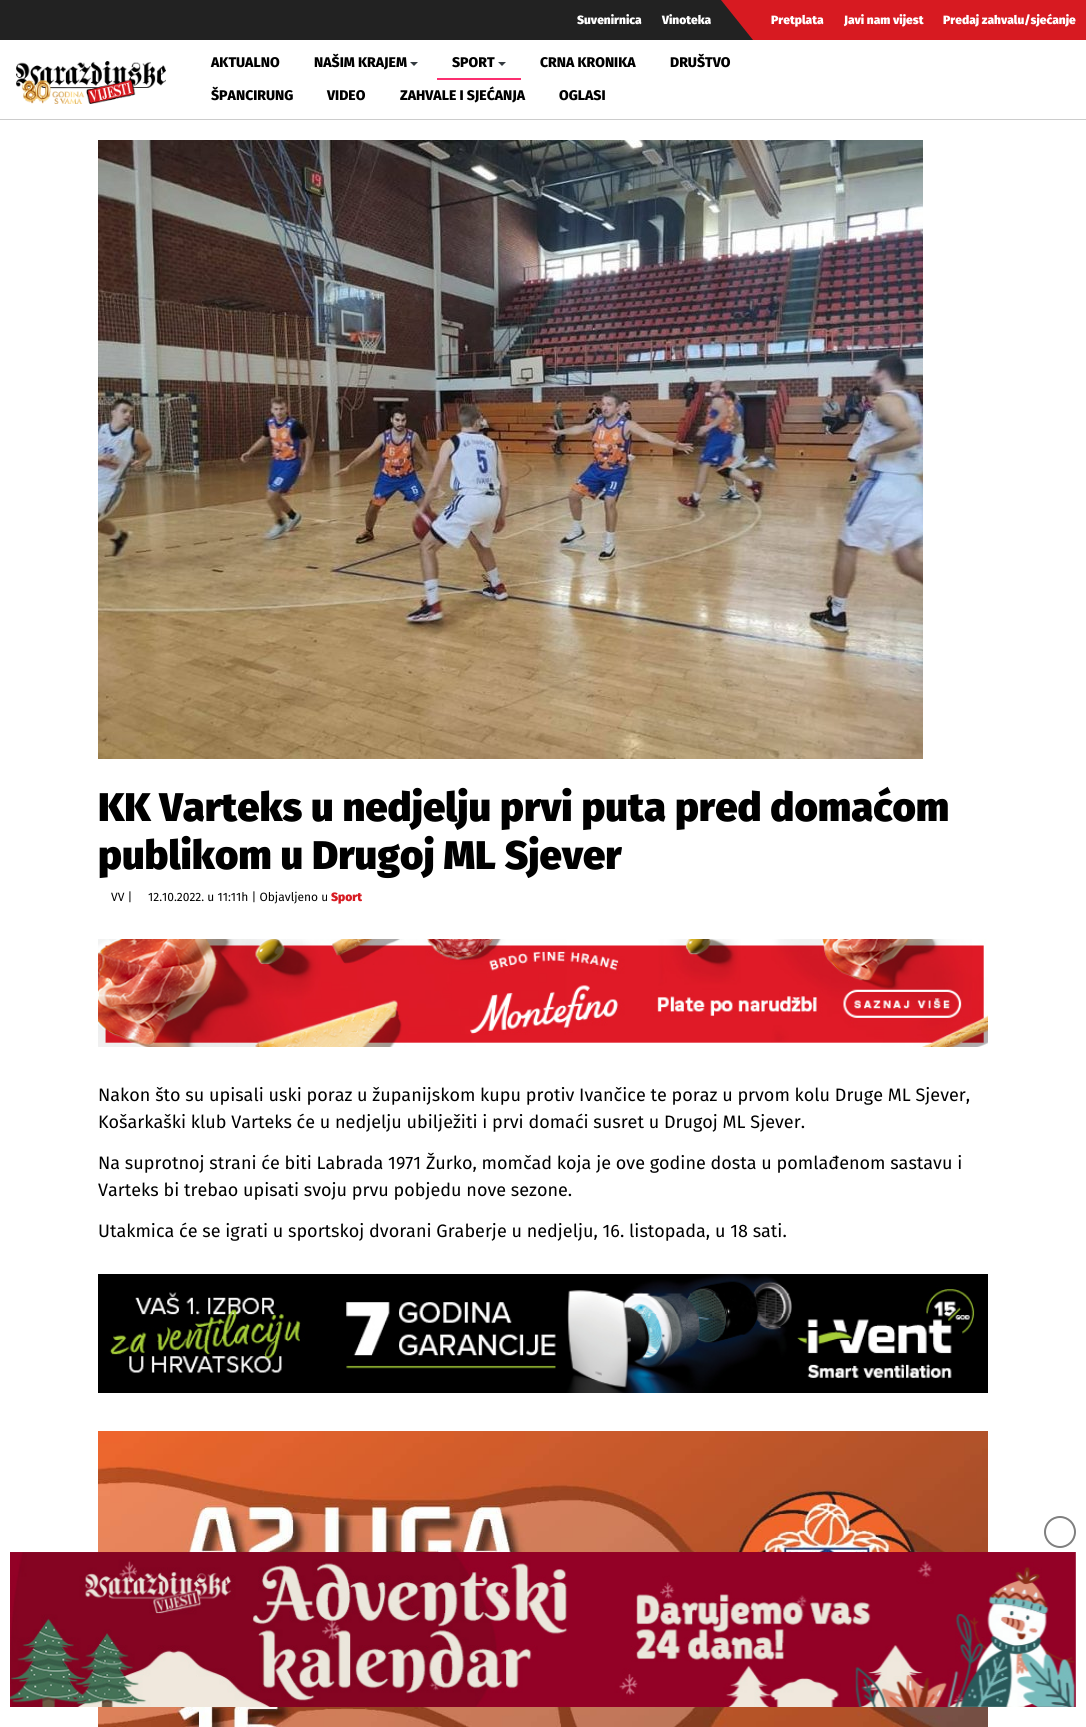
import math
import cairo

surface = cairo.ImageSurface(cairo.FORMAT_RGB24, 1086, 1727)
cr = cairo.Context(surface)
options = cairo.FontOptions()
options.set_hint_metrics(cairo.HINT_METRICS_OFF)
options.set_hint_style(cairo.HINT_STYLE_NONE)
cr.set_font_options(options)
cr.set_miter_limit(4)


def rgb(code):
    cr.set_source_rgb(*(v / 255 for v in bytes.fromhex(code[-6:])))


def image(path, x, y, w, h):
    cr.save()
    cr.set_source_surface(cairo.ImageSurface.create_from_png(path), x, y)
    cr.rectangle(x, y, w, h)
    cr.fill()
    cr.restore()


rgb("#ffffff")
cr.paint()
rgb("#222222")
cr.rectangle(0, 0, 753, 40)
cr.fill()
rgb("#d71a21")
cr.rectangle(761, 0, 325, 40)
cr.fill()
cr.new_path()
cr.move_to(761, 0)
cr.line_to(761, 50)
cr.line_to(721, 0)
cr.close_path()
cr.fill()
rgb("#ffffff")
cr.rectangle(753, 40, 8, 10)
cr.fill()
rgb("#cccccc")
cr.rectangle(0, 119, 1086, 1)
cr.fill()
image("img/1.png", 16, 61, 150, 43)
rgb("#343a40")
cr.new_path()
cr.move_to(410, 62)
cr.line_to(418, 62)
cr.line_to(414, 66)
cr.close_path()
cr.fill()
cr.new_path()
cr.move_to(498, 62)
cr.line_to(506, 62)
cr.line_to(502, 66)
cr.close_path()
cr.fill()
rgb("#fc2f70")
cr.rectangle(437, 78, 84, 2)
cr.fill()
image("img/2.png", 98, 140, 825, 619)
image("img/3.png", 98, 939, 890, 108)
image("img/4.png", 98, 1274, 890, 119)
image("img/5.png", 98, 1431, 890, 296)
cr.arc(1060, 1532, 15, 0, 2 * math.pi)
rgb("#808080")
cr.stroke()
image("img/6.png", 10, 1552, 1066, 155)
cr.select_font_face("Fira Sans Black")
cr.set_font_size(12)
rgb("#ffffff")
for x, y, s in [
    (577, 24, "Suvenirnica"),
    (662, 24, "Vinoteka"),
    (771, 24, "Pretplata"),
    (844, 24, "Javi nam vijest"),
    (943, 24, "Predaj zahvalu/sjećanje"),
]:
    cr.move_to(x, y)
    cr.show_text(s)
cr.select_font_face("Fira Sans ExtraBold")
cr.set_font_size(14)
rgb("#000000")
for x, y, s in [
    (211, 67, "AKTUALNO"),
    (314, 67, "NAŠIM KRAJEM"),
    (452, 67, "SPORT"),
    (540, 67, "CRNA KRONIKA"),
    (670, 67, "DRUŠTVO"),
    (211, 100, "ŠPANCIRUNG"),
    (327, 100, "VIDEO"),
    (400, 100, "ZAHVALE I SJEĆANJA"),
    (559, 100, "OGLASI"),
]:
    cr.move_to(x, y)
    cr.show_text(s)
cr.select_font_face("Fira Sans Black")
cr.set_font_size(40)
cr.move_to(98, 821)
cr.show_text("KK Varteks u nedjelju prvi puta pred domaćom")
cr.move_to(98, 869)
cr.show_text("publikom u Drugoj ML Sjever")
cr.select_font_face("Fira Sans")
cr.set_font_size(12)
cr.move_to(111, 901)
cr.show_text("VV |")
cr.move_to(148, 901)
cr.show_text("12.10.2022. u 11:11h | Objavljeno u")
cr.select_font_face("Fira Sans Black")
rgb("#d71a21")
cr.move_to(331, 901)
cr.show_text("Sport")
cr.select_font_face("Fira Sans")
cr.set_font_size(18)
rgb("#000000")
for x, y, s in [
    (98, 1101, "Nakon što su upisali uski poraz u županijskom kupu protiv Ivančice te poraz u prvom kolu Druge ML Sjever,"),
    (98, 1128, "Košarkaški klub Varteks će u nedjelju ubilježiti i prvi domaći susret u Drugoj ML Sjever."),
    (98, 1169, "Na suprotnoj strani će biti Labrada 1971 Žurko, momčad koja je ove godine dosta u pomlađenom sastavu i"),
    (98, 1196, "Varteks bi trebao upisati svoju prvu pobjedu nove sezone."),
    (98, 1237, "Utakmica će se igrati u sportskoj dvorani Graberje u nedjelju, 16. listopada, u 18 sati."),
]:
    cr.move_to(x, y)
    cr.show_text(s)
surface.write_to_png("page.png")
